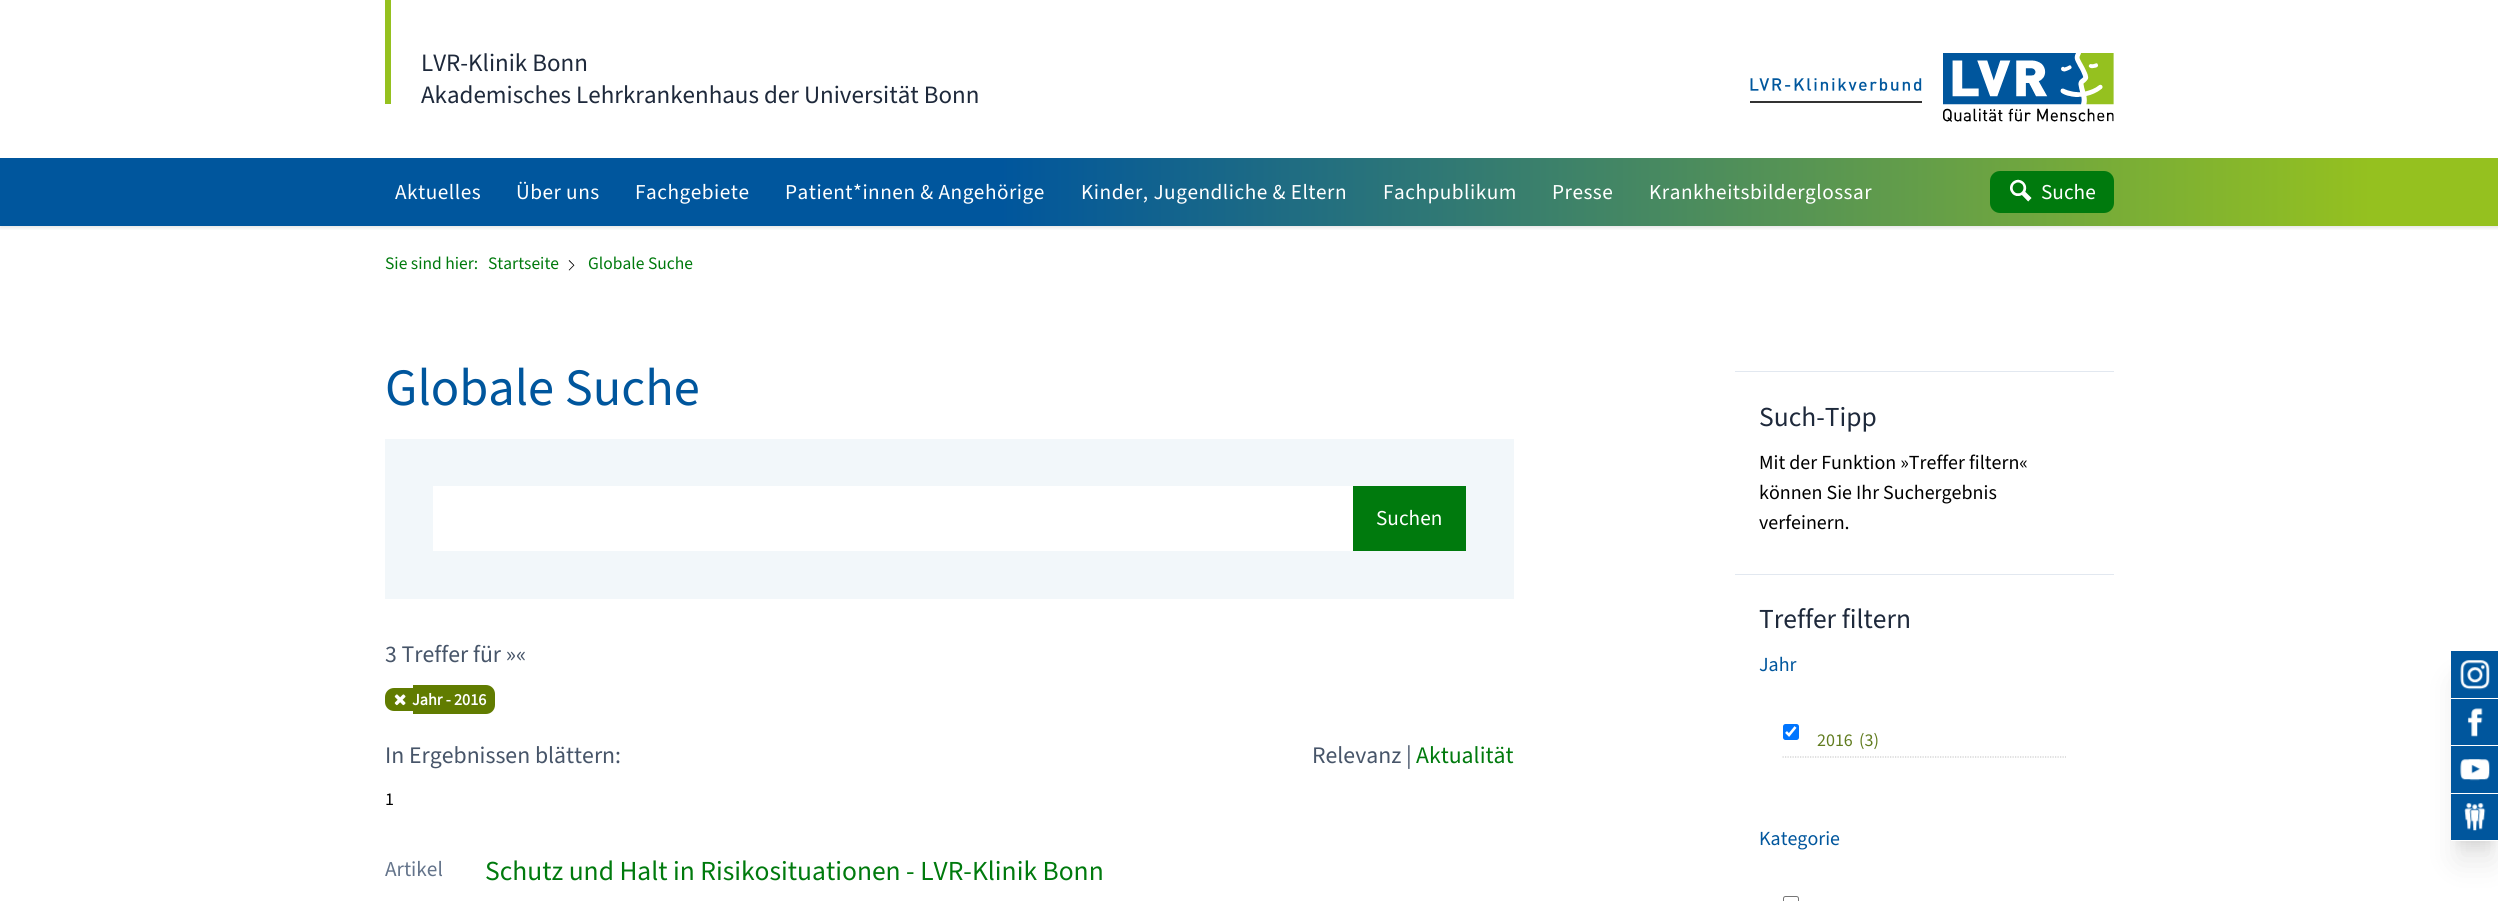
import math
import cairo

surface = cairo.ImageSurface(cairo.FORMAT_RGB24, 2498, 901)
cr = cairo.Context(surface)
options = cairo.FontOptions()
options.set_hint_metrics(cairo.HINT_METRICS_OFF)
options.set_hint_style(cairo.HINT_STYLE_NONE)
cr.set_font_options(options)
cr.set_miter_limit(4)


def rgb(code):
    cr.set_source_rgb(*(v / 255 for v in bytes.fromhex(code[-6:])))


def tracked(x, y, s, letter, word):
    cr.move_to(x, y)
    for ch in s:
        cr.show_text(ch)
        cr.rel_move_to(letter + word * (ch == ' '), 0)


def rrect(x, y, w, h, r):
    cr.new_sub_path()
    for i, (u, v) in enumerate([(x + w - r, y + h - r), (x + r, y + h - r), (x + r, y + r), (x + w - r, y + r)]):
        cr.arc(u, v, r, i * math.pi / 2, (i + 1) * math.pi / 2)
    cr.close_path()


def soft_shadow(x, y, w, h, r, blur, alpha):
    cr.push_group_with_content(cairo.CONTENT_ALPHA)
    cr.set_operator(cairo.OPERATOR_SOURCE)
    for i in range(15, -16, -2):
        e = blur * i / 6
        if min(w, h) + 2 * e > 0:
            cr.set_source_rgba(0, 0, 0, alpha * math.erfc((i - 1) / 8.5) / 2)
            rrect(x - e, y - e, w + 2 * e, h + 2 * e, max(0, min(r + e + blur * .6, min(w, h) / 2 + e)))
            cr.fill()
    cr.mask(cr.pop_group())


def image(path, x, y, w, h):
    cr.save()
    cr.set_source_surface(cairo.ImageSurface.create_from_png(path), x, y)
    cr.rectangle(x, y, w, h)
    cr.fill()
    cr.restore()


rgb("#ffffff")
cr.paint()
cr.save()
cr.rectangle(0, 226, 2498, 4)
cr.clip()
rgb("#000000")
soft_shadow(0, 1, 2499, 227, 0, 2, 0.1)
cr.restore()
rgb("#95c11f")
cr.rectangle(385, 0, 6, 104)
cr.fill()
image("img/1.png", 1750, 78, 172, 25)
image("img/2.png", 1943, 53, 171, 69)
gradient = cairo.LinearGradient(0, 192, 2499, 192)
gradient.add_color_stop_rgba(0.4, 0, 0.337, 0.616, 1)
gradient.add_color_stop_rgba(0.95, 0.584, 0.757, 0.122, 1)
cr.set_source(gradient)
cr.rectangle(0, 158, 2498, 68)
cr.fill()
rgb("#007a0d")
rrect(1990, 171, 124, 42, 10)
cr.fill()
image("img/3.png", 2010, 179, 22, 23)
image("img/4.png", 568, 260, 7, 11)
for x, y, w, h, color in [
    (385, 439, 1129, 160, "#f2f7fa"),
    (433, 486, 920, 65, "#ffffff"),
    (1353, 486, 113, 65, "#007a0d"),
]:
    rgb(color)
    cr.rectangle(x, y, w, h)
    cr.fill()
rgb("#617c00")
cr.new_path()
cr.move_to(394, 688)
cr.line_to(413, 688)
cr.line_to(413, 711)
cr.line_to(394, 711)
cr.curve_to(389, 711, 385, 707, 385, 702)
cr.line_to(385, 697)
cr.curve_to(385, 692, 389, 688, 394, 688)
cr.close_path()
cr.fill()
cr.new_path()
cr.move_to(413, 685)
cr.line_to(486, 685)
cr.curve_to(491, 685, 495, 689, 495, 694)
cr.line_to(495, 705)
cr.curve_to(495, 710, 491, 714, 486, 714)
cr.line_to(413, 714)
cr.close_path()
cr.fill()
image("img/5.png", 394, 694, 12, 12)
rgb("#e2e8f0")
cr.rectangle(1735, 371, 379, 1)
cr.fill()
cr.rectangle(1735, 574, 379, 1)
cr.fill()
cr.new_path()
cr.move_to(1782.5, 757)
cr.line_to(2066, 757)
rgb("#cccccc")
cr.set_line_width(1.2)
cr.set_dash([1.25, 1.25])
cr.stroke()
rgb("#0075ff")
rrect(1783, 724, 16, 16, 2.5)
cr.fill()
cr.new_path()
cr.move_to(1786, 732)
cr.line_to(1789, 735)
cr.line_to(1795.5, 727)
rgb("#ffffff")
cr.set_line_width(2.6)
cr.set_dash([])
cr.stroke()
rrect(1783.5, 896.5, 15, 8, 2)
rgb("#767676")
cr.set_line_width(1)
cr.stroke()
rgb("#000000")
soft_shadow(2459, 669, 32, 175, 0, 6, 0.1)
soft_shadow(2458, 683, 35, 177, 0, 15.5, 0.1)
rgb("#00569d")
cr.rectangle(2451, 651, 47, 47)
cr.fill()
rgb("#ffffff")
cr.rectangle(2451, 698, 47, 1)
cr.fill()
image("img/6.png", 2460, 660, 30, 30)
rgb("#00569d")
cr.rectangle(2451, 699, 47, 46)
cr.fill()
rgb("#ffffff")
cr.rectangle(2451, 745, 47, 1)
cr.fill()
image("img/7.png", 2467, 708, 16, 29)
rgb("#00569d")
cr.rectangle(2451, 746, 47, 47)
cr.fill()
rgb("#ffffff")
cr.rectangle(2451, 793, 47, 1)
cr.fill()
image("img/8.png", 2460, 759, 30, 22)
rgb("#00569d")
cr.rectangle(2451, 794, 47, 46)
cr.fill()
rgb("#ffffff")
cr.rectangle(2451, 840, 47, 1)
cr.fill()
image("img/9.png", 2464, 803, 22, 28)
cr.select_font_face("Source Sans 3")
cr.set_font_size(25)
rgb("#1e293b")
cr.move_to(421, 71)
cr.show_text("LVR-Klinik Bonn")
cr.move_to(421, 103)
cr.show_text("Akademisches Lehrkrankenhaus der Universität Bonn")
cr.set_font_size(21.25)
rgb("#ffffff")
for x, y, s in [
    (395, 199, "Aktuelles"),
    (516, 199, "Über uns"),
    (635, 199, "Fachgebiete"),
    (785, 199, "Patient*innen & Angehörige"),
    (1081, 199, "Kinder, Jugendliche & Eltern"),
    (1383, 199, "Fachpublikum"),
    (1552, 199, "Presse"),
    (1649, 199, "Krankheitsbilderglossar"),
]:
    tracked(x, y, s, 0.5, 0)
cr.move_to(2041, 199)
cr.show_text("Suche")
cr.set_font_size(17.5)
rgb("#007a0d")
for x, y, s in [
    (385, 269, "Sie sind hier:"),
    (488, 269, "Startseite"),
    (588, 269, "Globale Suche"),
]:
    cr.move_to(x, y)
    cr.show_text(s)
cr.set_font_size(52.5)
rgb("#00569d")
cr.move_to(385, 405)
cr.show_text("Globale Suche")
cr.set_font_size(21.25)
rgb("#ffffff")
cr.move_to(1376, 525)
cr.show_text("Suchen")
cr.set_font_size(23.75)
rgb("#475569")
cr.move_to(385, 662)
cr.show_text("3 Treffer für »«")
cr.select_font_face("Source Sans 3", cairo.FONT_SLANT_NORMAL, cairo.FONT_WEIGHT_BOLD)
cr.set_font_size(16.25)
rgb("#ffffff")
cr.move_to(412, 705)
cr.show_text("Jahr - 2016")
cr.select_font_face("Source Sans 3")
cr.set_font_size(23.75)
rgb("#475569")
for x, y, s in [
    (385, 763, "In Ergebnissen blättern:"),
    (1312, 763, "Relevanz"),
    (1406, 763, "|"),
]:
    cr.move_to(x, y)
    cr.show_text(s)
rgb("#007a0d")
cr.move_to(1416, 763)
cr.show_text("Aktualität")
cr.set_font_size(18)
rgb("#000000")
cr.move_to(385, 805)
cr.show_text("1")
cr.set_font_size(21.25)
rgb("#64748b")
cr.move_to(385, 876)
cr.show_text("Artikel")
cr.set_font_size(27.5)
rgb("#007a0d")
cr.move_to(485, 880)
cr.show_text("Schutz und Halt in Risikosituationen - LVR-Klinik Bonn")
rgb("#1e293b")
cr.move_to(1759, 426)
cr.show_text("Such-Tipp")
cr.set_font_size(20)
rgb("#000000")
for x, y, s in [
    (1759, 469, "Mit der Funktion »Treffer filtern«"),
    (1759, 499, "können Sie Ihr Suchergebnis"),
    (1759, 529, "verfeinern."),
]:
    cr.move_to(x, y)
    cr.show_text(s)
cr.set_font_size(27.5)
rgb("#1e293b")
cr.move_to(1759, 628)
cr.show_text("Treffer filtern")
cr.set_font_size(20)
rgb("#00569d")
cr.move_to(1759, 671)
cr.show_text("Jahr")
cr.set_font_size(18)
rgb("#617c1f")
cr.move_to(1817, 746)
cr.show_text("2016")
cr.move_to(1859, 746)
cr.show_text("(3)")
cr.set_font_size(20)
rgb("#00569d")
cr.move_to(1759, 845)
cr.show_text("Kategorie")
surface.write_to_png("page.png")
